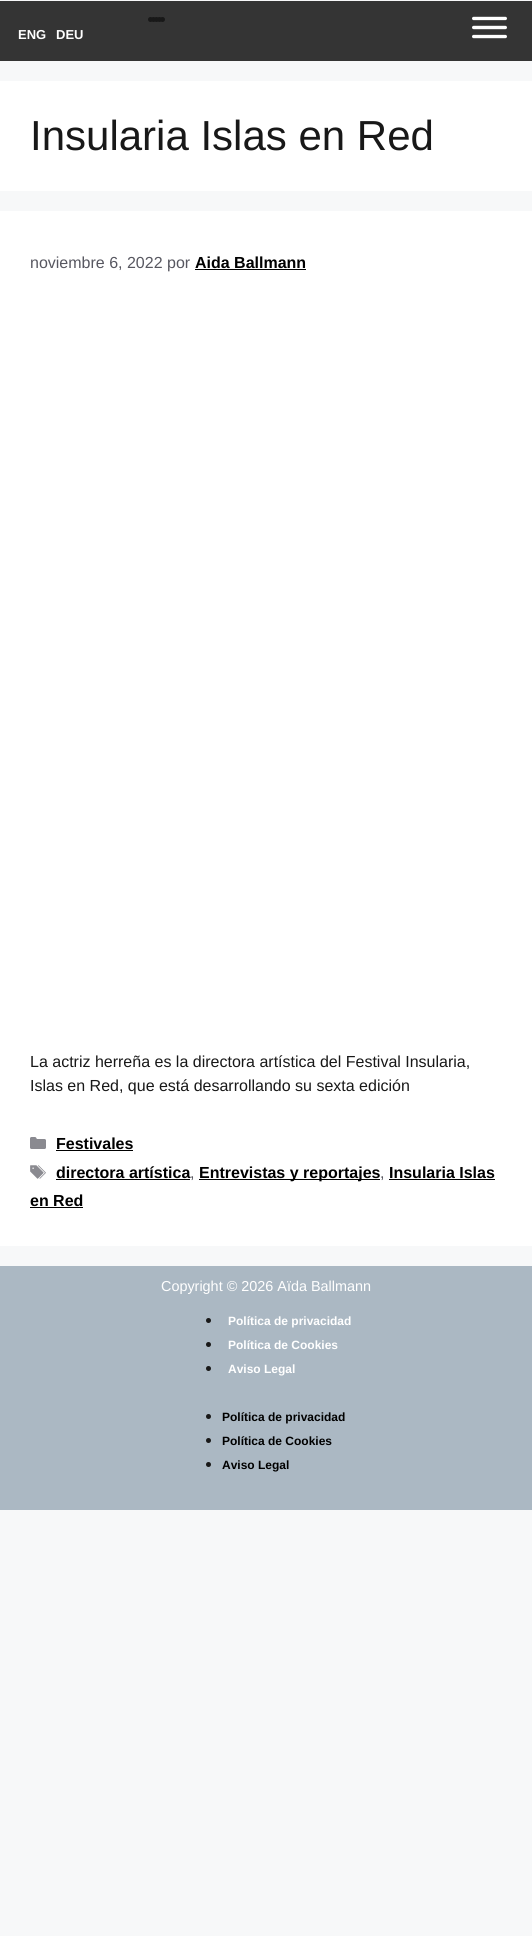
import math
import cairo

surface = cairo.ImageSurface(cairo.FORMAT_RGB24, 532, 1936)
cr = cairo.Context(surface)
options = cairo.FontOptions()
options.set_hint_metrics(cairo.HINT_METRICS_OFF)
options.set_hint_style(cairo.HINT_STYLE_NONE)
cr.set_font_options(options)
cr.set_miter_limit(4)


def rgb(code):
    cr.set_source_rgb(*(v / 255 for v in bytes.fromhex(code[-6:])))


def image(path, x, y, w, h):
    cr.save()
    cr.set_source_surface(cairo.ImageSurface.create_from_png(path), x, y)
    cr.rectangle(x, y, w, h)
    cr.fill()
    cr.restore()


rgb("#f7f8f9")
cr.paint()
rgb("#343434")
cr.rectangle(0, 1, 532, 60)
cr.fill()
rgb("#181818")
cr.arc(150.5, 19.5, 2.5, 0, 2 * math.pi)
cr.fill()
cr.arc(153.5, 19.5, 2.5, 0, 2 * math.pi)
cr.fill()
cr.arc(156.5, 19.5, 2.5, 0, 2 * math.pi)
cr.fill()
cr.arc(159.5, 19.5, 2.5, 0, 2 * math.pi)
cr.fill()
cr.arc(162.5, 19.5, 2.5, 0, 2 * math.pi)
cr.fill()
image("img/1.png", 472, 16, 35, 23)
for x, y, w, h, color in [
    (0, 81, 532, 110, "#ffffff"),
    (0, 211, 532, 1035, "#ffffff"),
    (195, 269, 111, 1, "#000000"),
]:
    rgb(color)
    cr.rectangle(x, y, w, h)
    cr.fill()
image("img/2.png", 30, 1137, 16, 12)
cr.rectangle(56, 1150, 77, 1)
cr.fill()
image("img/3.png", 30, 1165, 16, 14)
for x, y, w, h, color in [
    (56, 1179, 134, 1, "#000000"),
    (199, 1179, 181, 1, "#000000"),
    (389, 1179, 106, 1, "#000000"),
    (30, 1207, 53, 1, "#000000"),
    (0, 1266, 532, 244, "#abb8c3"),
]:
    rgb(color)
    cr.rectangle(x, y, w, h)
    cr.fill()
rgb("#181818")
cr.arc(208.5, 1320.5, 2.5, 0, 2 * math.pi)
cr.fill()
cr.arc(208.5, 1344.5, 2.5, 0, 2 * math.pi)
cr.fill()
cr.arc(208.5, 1368.5, 2.5, 0, 2 * math.pi)
cr.fill()
cr.arc(208.5, 1416.5, 2.5, 0, 2 * math.pi)
cr.fill()
cr.arc(208.5, 1440.5, 2.5, 0, 2 * math.pi)
cr.fill()
cr.arc(208.5, 1464.5, 2.5, 0, 2 * math.pi)
cr.fill()
cr.select_font_face("Liberation Sans", cairo.FONT_SLANT_NORMAL, cairo.FONT_WEIGHT_BOLD)
cr.set_font_size(13)
rgb("#ffffff")
cr.move_to(18, 39)
cr.show_text("ENG")
cr.move_to(56, 39)
cr.show_text("DEU")
cr.select_font_face("Liberation Sans")
cr.set_font_size(42)
rgb("#181818")
cr.move_to(30, 150)
cr.show_text("Insularia Islas en Red")
cr.set_font_size(16)
rgb("#575760")
cr.move_to(30, 268)
cr.show_text("noviembre 6, 2022 por")
cr.select_font_face("Liberation Sans", cairo.FONT_SLANT_NORMAL, cairo.FONT_WEIGHT_BOLD)
rgb("#000000")
cr.move_to(195, 268)
cr.show_text("Aida Ballmann")
cr.select_font_face("Liberation Sans")
rgb("#181818")
cr.move_to(30, 1067)
cr.show_text("La actriz herreña es la directora artística del Festival Insularia,")
cr.move_to(30, 1091)
cr.show_text("Islas en Red, que está desarrollando su sexta edición")
cr.select_font_face("Liberation Sans", cairo.FONT_SLANT_NORMAL, cairo.FONT_WEIGHT_BOLD)
rgb("#000000")
cr.move_to(56, 1149)
cr.show_text("Festivales")
cr.move_to(56, 1178)
cr.show_text("directora artística")
cr.select_font_face("Liberation Sans")
rgb("#575760")
cr.move_to(190, 1178)
cr.show_text(",")
cr.select_font_face("Liberation Sans", cairo.FONT_SLANT_NORMAL, cairo.FONT_WEIGHT_BOLD)
rgb("#000000")
cr.move_to(199, 1178)
cr.show_text("Entrevistas y reportajes")
cr.select_font_face("Liberation Sans")
rgb("#575760")
cr.move_to(380, 1178)
cr.show_text(",")
cr.select_font_face("Liberation Sans", cairo.FONT_SLANT_NORMAL, cairo.FONT_WEIGHT_BOLD)
rgb("#000000")
cr.move_to(389, 1178)
cr.show_text("Insularia Islas")
cr.move_to(30, 1206)
cr.show_text("en Red")
cr.select_font_face("Liberation Sans")
cr.set_font_size(14.4)
rgb("#ffffff")
cr.move_to(161, 1291)
cr.show_text("Copyright © 2026 Aïda Ballmann")
cr.select_font_face("Liberation Sans", cairo.FONT_SLANT_NORMAL, cairo.FONT_WEIGHT_BOLD)
cr.set_font_size(12)
for x, y, s in [
    (228, 1325, "Política de privacidad"),
    (228, 1349, "Política de Cookies"),
    (228, 1373, "Aviso Legal"),
]:
    cr.move_to(x, y)
    cr.show_text(s)
rgb("#000000")
for x, y, s in [
    (222, 1421, "Política de privacidad"),
    (222, 1445, "Política de Cookies"),
    (222, 1469, "Aviso Legal"),
]:
    cr.move_to(x, y)
    cr.show_text(s)
surface.write_to_png("page.png")
